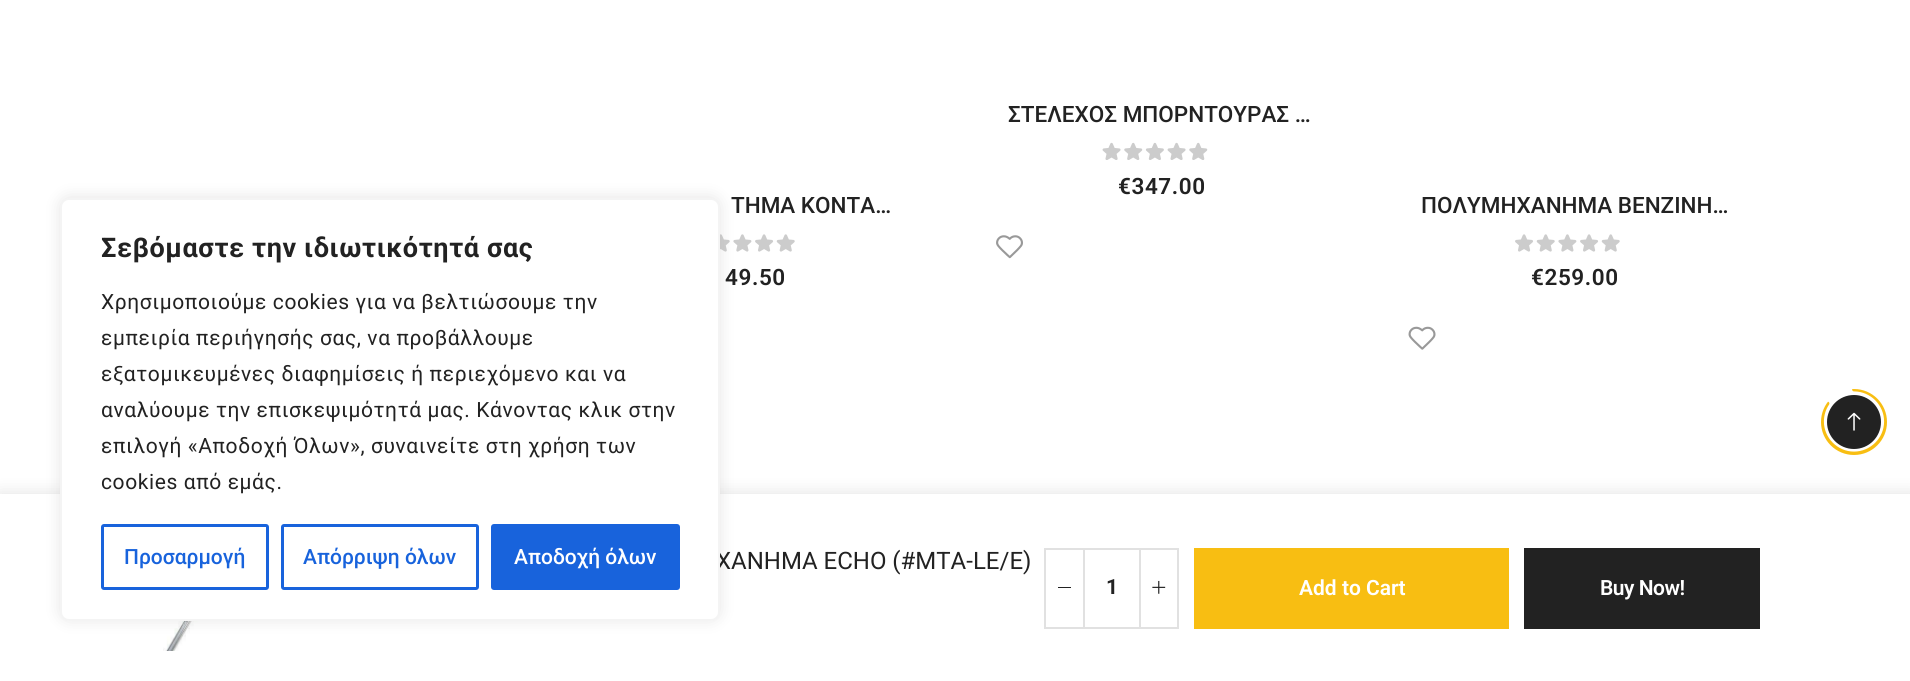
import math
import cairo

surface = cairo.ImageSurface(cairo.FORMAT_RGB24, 1910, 681)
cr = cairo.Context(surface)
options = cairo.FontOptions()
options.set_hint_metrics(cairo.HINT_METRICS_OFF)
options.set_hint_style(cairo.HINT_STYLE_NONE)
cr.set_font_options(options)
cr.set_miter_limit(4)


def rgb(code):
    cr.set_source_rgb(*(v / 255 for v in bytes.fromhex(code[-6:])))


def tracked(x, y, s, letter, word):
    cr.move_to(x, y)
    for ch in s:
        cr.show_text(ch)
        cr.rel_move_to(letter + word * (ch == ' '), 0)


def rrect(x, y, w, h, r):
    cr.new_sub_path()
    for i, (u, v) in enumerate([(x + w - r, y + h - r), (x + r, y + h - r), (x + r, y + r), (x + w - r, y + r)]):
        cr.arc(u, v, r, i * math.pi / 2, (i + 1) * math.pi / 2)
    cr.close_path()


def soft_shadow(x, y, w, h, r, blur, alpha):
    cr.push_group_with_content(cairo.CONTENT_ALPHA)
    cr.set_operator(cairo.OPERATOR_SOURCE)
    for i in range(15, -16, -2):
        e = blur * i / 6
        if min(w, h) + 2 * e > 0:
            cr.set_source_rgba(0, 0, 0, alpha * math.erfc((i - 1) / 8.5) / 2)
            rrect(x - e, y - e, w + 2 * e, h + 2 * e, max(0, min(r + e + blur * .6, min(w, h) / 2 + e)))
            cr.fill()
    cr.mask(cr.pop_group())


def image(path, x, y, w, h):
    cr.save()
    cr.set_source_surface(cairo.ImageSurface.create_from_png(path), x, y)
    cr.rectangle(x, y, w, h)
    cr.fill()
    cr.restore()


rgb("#ffffff")
cr.paint()
image("img/3.png", 720, 234, 75, 18)
rgb("#000000")
soft_shadow(-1, 492, 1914, 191, 0, 7.5, 0.1)
rgb("#ffffff")
cr.rectangle(0, 494, 1910, 187)
cr.fill()
image("img/6.png", 163, 621, 116, 30)
rgb("#acabab")
soft_shadow(60, 197, 660, 423, 9, 7.5, 0.3)
image("img/1.png", 1102, 142, 106, 18)
image("img/2.png", 996, 235, 27, 24)
image("img/4.png", 1515, 234, 105, 18)
image("img/5.png", 1408, 326, 28, 24)
cr.rectangle(1045, 549, 133, 79)
rgb("#e1e1e1")
cr.stroke()
for x, y, w, h, color in [
    (1058, 587, 13, 1, "#222222"),
    (1139, 549, 2, 78, "#e1e1e1"),
    (1083, 549, 2, 78, "#e1e1e1"),
]:
    rgb(color)
    cr.rectangle(x, y, w, h)
    cr.fill()
image("img/7.png", 1152, 580, 14, 14)
rgb("#f8be12")
cr.rectangle(1194, 548, 315, 81)
cr.fill()
rgb("#222222")
cr.rectangle(1524, 548, 236, 81)
cr.fill()
cr.save()
rrect(1821, 389, 66, 66, 33)
cr.clip()
cr.new_path()
cr.move_to(1854, 389.5)
cr.curve_to(1871.5, 389.5, 1886, 404, 1886, 421.5)
cr.curve_to(1886, 439, 1871.5, 453.5, 1854, 453.5)
cr.curve_to(1836.5, 453.5, 1822, 439, 1822, 421.5)
cr.curve_to(1822, 415, 1824, 408.5, 1827.5, 403.5)
rgb("#f8be12")
cr.set_line_width(3.8)
cr.set_line_cap(cairo.LINE_CAP_ROUND)
cr.stroke()
cr.restore()
cr.arc(1854, 422, 25.5, 0, 2 * math.pi)
cr.fill_preserve()
cr.set_line_width(3)
cr.stroke()
image("img/8.png", 1847, 412, 14, 19)
cr.select_font_face("Roboto Medium")
cr.set_font_size(22.5)
cr.move_to(1008, 122)
cr.show_text("ΣΤΕΛΕΧΟΣ ΜΠΟΡΝΤΟΥΡΑΣ …")
cr.select_font_face("Roboto SemiBold")
tracked(1118, 194, "€347.00", 0.6, 0)
cr.select_font_face("Roboto Medium")
cr.move_to(731, 213)
cr.show_text("ΤΗΜΑ ΚΟΝΤΑ…")
cr.select_font_face("Roboto SemiBold")
tracked(725, 285, "49.50", 0.6, 0)
cr.select_font_face("Roboto Medium")
cr.move_to(1421, 213)
cr.show_text("ΠΟΛΥΜΗΧΑΝΗΜΑ ΒΕΝΖΙΝΗ…")
cr.select_font_face("Roboto SemiBold")
tracked(1531, 285, "€259.00", 0.6, 0)
cr.select_font_face("Roboto")
cr.set_font_size(24)
cr.move_to(716, 569)
cr.show_text("ΧΑΝΗΜΑ ECHO (#MTA-LE/E)")
rgb("#ffffff")
rrect(61, 199, 658, 421, 8)
cr.fill_preserve()
rgb("#f4f4f4")
cr.set_line_width(2)
cr.stroke()
rgb("#1863dc")
rrect(492.5, 525.5, 186, 63, 1.5)
cr.fill_preserve()
cr.set_line_width(3)
cr.stroke()
cr.select_font_face("Roboto Medium")
cr.set_font_size(21)
rgb("#ffffff")
cr.move_to(514, 564)
cr.show_text("Αποδοχή όλων")
rrect(282.5, 525.5, 195, 63, 1.5)
rgb("#1863dc")
cr.stroke()
cr.move_to(303, 564)
cr.show_text("Απόρριψη όλων")
rrect(102.5, 525.5, 165, 63, 1.5)
cr.stroke()
cr.move_to(124, 564)
cr.show_text("Προσαρμογή")
cr.select_font_face("Roboto")
rgb("#222222")
for x, y, s in [
    (101, 489, "cookies από εμάς."),
    (101, 453, "επιλογή «Αποδοχή Όλων», συναινείτε στη χρήση των"),
    (101, 417, "αναλύουμε την επισκεψιμότητά μας. Κάνοντας κλικ στην"),
    (101, 381, "εξατομικευμένες διαφημίσεις ή περιεχόμενο και να"),
    (101, 345, "εμπειρία περιήγησής σας, να προβάλλουμε"),
    (101, 309, "Χρησιμοποιούμε cookies για να βελτιώσουμε την"),
]:
    tracked(x, y, s, 0.6, 0)
cr.select_font_face("Roboto", cairo.FONT_SLANT_NORMAL, cairo.FONT_WEIGHT_BOLD)
cr.set_font_size(27)
tracked(101, 257, "Σεβόμαστε την ιδιωτικότητά σας", 0.6, 0)
cr.set_font_size(21)
tracked(1106, 594, "1", 0.6, 0)
cr.select_font_face("Roboto SemiBold")
rgb("#ffffff")
cr.move_to(1299, 595)
cr.show_text("Add to Cart")
tracked(1600, 595, "Buy Now!", -0.5, 0)
surface.write_to_png("page.png")
